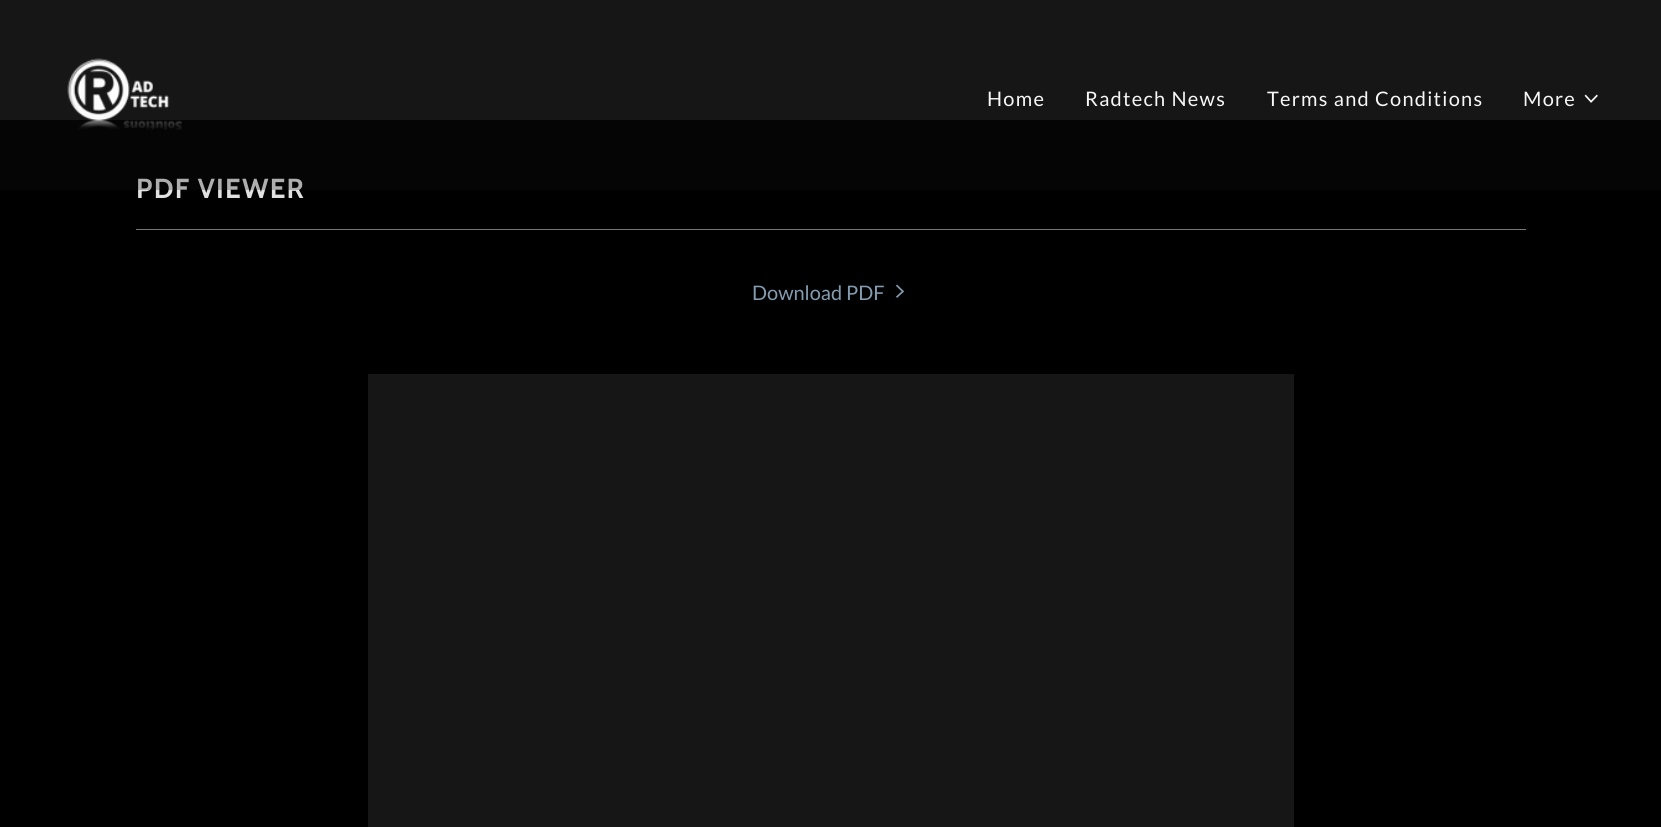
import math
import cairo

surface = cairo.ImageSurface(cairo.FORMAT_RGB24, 1661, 827)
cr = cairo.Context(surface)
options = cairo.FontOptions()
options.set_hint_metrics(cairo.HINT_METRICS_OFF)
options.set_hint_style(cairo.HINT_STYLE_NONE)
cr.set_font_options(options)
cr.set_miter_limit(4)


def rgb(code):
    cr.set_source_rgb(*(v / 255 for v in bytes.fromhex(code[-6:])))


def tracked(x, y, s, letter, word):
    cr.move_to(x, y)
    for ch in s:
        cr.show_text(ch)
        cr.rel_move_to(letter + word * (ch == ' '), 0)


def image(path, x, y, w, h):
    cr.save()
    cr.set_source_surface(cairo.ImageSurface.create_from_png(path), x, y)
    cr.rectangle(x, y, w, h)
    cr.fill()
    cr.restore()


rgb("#000000")
cr.paint()
rgb("#161616")
cr.rectangle(0, 0, 1661, 120)
cr.fill()
image("img/2.png", 1584, 94, 14, 9)
rgb("#777777")
cr.rectangle(136, 229, 1390, 1)
cr.fill()
image("img/3.png", 895, 284, 10, 14)
rgb("#161616")
cr.rectangle(368, 374, 926, 453)
cr.fill()
cr.select_font_face("Lato")
cr.set_font_size(20)
rgb("#f7f7f7")
for x, y, s in [
    (987, 106, "Home"),
    (1085, 106, "Radtech News"),
    (1267, 106, "Terms and Conditions"),
    (1523, 106, "More"),
]:
    tracked(x, y, s, 1.25, 0)
cr.select_font_face("Cabin", cairo.FONT_SLANT_NORMAL, cairo.FONT_WEIGHT_BOLD)
cr.set_font_size(27.5)
rgb("#e2e2e2")
tracked(136, 198, "PDF VIEWER", 1.25, 0)
cr.set_source_rgba(0.086, 0.086, 0.086, 0.25)
cr.rectangle(0, 120, 1661, 70)
cr.fill()
image("img/1.png", 67, 58, 115, 72)
cr.select_font_face("Lato")
cr.set_font_size(20)
rgb("#849caf")
cr.move_to(752, 300)
cr.show_text("Download PDF")
surface.write_to_png("page.png")
